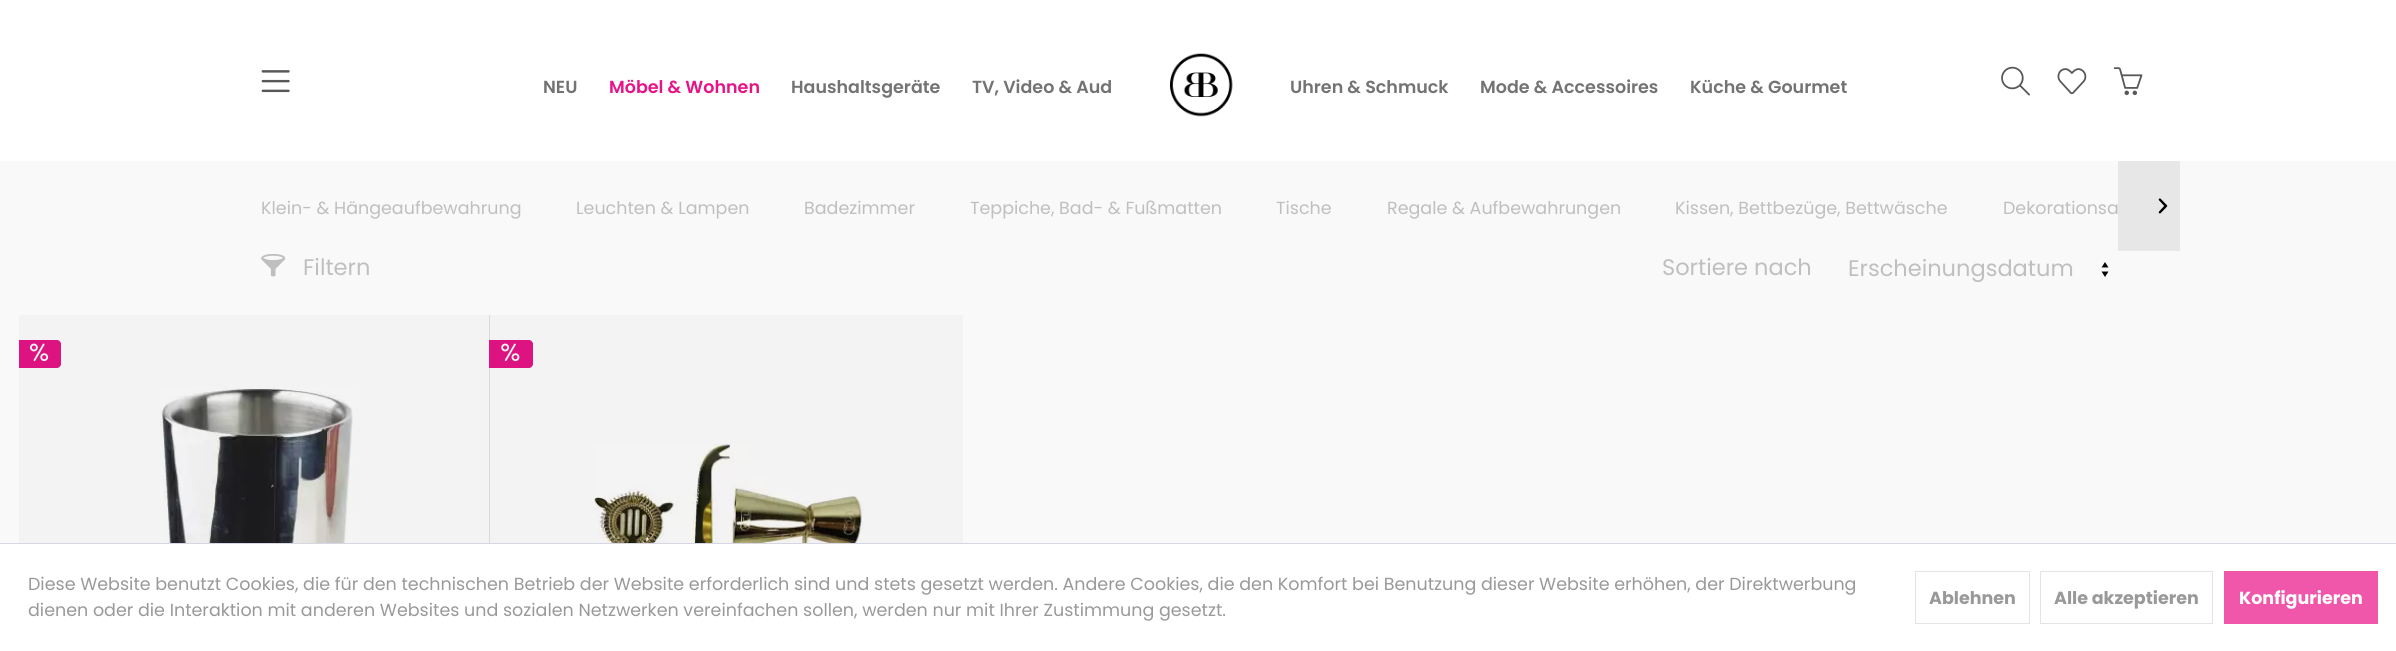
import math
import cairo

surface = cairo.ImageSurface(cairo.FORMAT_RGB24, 2396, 651)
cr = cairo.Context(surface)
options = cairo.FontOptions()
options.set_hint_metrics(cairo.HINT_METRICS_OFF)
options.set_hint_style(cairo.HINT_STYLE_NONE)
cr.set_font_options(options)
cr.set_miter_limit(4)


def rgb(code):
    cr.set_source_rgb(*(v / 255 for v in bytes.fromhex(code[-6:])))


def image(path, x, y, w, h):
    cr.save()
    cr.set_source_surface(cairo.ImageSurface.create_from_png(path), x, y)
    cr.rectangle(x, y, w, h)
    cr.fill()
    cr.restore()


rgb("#f9f9f9")
cr.paint()
rgb("#ffffff")
cr.rectangle(0, 0, 2396, 161)
cr.fill()
image("img/1.png", 261, 70, 29, 23)
image("img/2.png", 1170, 53, 63, 64)
image("img/3.png", 2001, 66, 29, 30)
image("img/4.png", 2057, 68, 30, 27)
image("img/5.png", 2113, 67, 30, 29)
rgb("#e7e7e7")
cr.rectangle(2118, 161, 62, 90)
cr.fill()
image("img/6.png", 2158, 198, 10, 16)
image("img/7.png", 261, 254, 25, 23)
image("img/8.png", 2101, 262, 8, 15)
rgb("#f3f3f3")
cr.rectangle(19, 315, 470, 228)
cr.fill()
rgb("#dadada")
cr.rectangle(489, 315, 1, 228)
cr.fill()
rgb("#dd1381")
cr.new_path()
cr.move_to(19, 340)
cr.line_to(57, 340)
cr.curve_to(59, 340, 61, 342, 61, 344)
cr.line_to(61, 364)
cr.curve_to(61, 366, 59, 368, 57, 368)
cr.line_to(19, 368)
cr.close_path()
cr.fill()
image("img/9.png", 30, 343, 19, 19)
image("img/10.png", 160, 387, 193, 156)
rgb("#f3f3f3")
cr.rectangle(490, 315, 473, 228)
cr.fill()
rgb("#dd1381")
cr.new_path()
cr.move_to(489, 340)
cr.line_to(529, 340)
cr.curve_to(531, 340, 533, 342, 533, 344)
cr.line_to(533, 364)
cr.curve_to(533, 366, 531, 368, 529, 368)
cr.line_to(489, 368)
cr.close_path()
cr.fill()
image("img/11.png", 501, 343, 19, 19)
image("img/12.png", 594, 444, 271, 99)
rgb("#ffffff")
cr.rectangle(0, 544, 2396, 107)
cr.fill()
rgb("#d7d7e3")
cr.rectangle(0, 543, 2396, 1)
cr.fill()
cr.rectangle(1915.5, 571.5, 114, 52)
rgb("#e4e4e4")
cr.set_line_width(1)
cr.stroke()
cr.rectangle(2040.5, 571.5, 172, 52)
cr.stroke()
rgb("#f057ab")
cr.rectangle(2224, 571, 154, 53)
cr.fill()
cr.select_font_face("Poppins SemiBold")
cr.set_font_size(17.5)
rgb("#737373")
cr.move_to(543, 93)
cr.show_text("NEU")
rgb("#e71487")
cr.move_to(609, 93)
cr.show_text("Möbel & Wohnen")
rgb("#737373")
for x, y, s in [
    (791, 93, "Haushaltsgeräte"),
    (972, 93, "TV, Video & Aud"),
    (1290, 93, "Uhren & Schmuck"),
    (1480, 93, "Mode & Accessoires"),
    (1690, 93, "Küche & Gourmet"),
]:
    cr.move_to(x, y)
    cr.show_text(s)
cr.select_font_face("Poppins")
rgb("#bfbfbf")
for x, y, s in [
    (261, 214, "Klein- & Hängeaufbewahrung"),
    (576, 214, "Leuchten & Lampen"),
    (804, 214, "Badezimmer"),
    (970, 214, "Teppiche, Bad- & Fußmatten"),
    (1276, 214, "Tische"),
    (1387, 214, "Regale & Aufbewahrungen"),
    (1675, 214, "Kissen, Bettbezüge, Bettwäsche"),
    (2003, 214, "Dekorationsa"),
]:
    cr.move_to(x, y)
    cr.show_text(s)
cr.set_font_size(22.5)
for x, y, s in [
    (303, 275, "Filtern"),
    (1662, 275, "Sortiere nach"),
    (1848, 276, "Erscheinungsdatum"),
]:
    cr.move_to(x, y)
    cr.show_text(s)
cr.set_font_size(17.5)
rgb("#999999")
cr.move_to(28, 590)
cr.show_text("Diese Website benutzt Cookies, die für den technischen Betrieb der Website erforderlich sind und stets gesetzt werden. Andere Cookies, die den Komfort bei Benutzung dieser Website erhöhen, der Direktwerbung")
cr.move_to(28, 616)
cr.show_text("dienen oder die Interaktion mit anderen Websites und sozialen Netzwerken vereinfachen sollen, werden nur mit Ihrer Zustimmung gesetzt.")
cr.select_font_face("Poppins", cairo.FONT_SLANT_NORMAL, cairo.FONT_WEIGHT_BOLD)
cr.move_to(1929, 604)
cr.show_text("Ablehnen")
cr.move_to(2054, 604)
cr.show_text("Alle akzeptieren")
rgb("#ffffff")
cr.move_to(2239, 604)
cr.show_text("Konfigurieren")
surface.write_to_png("page.png")
